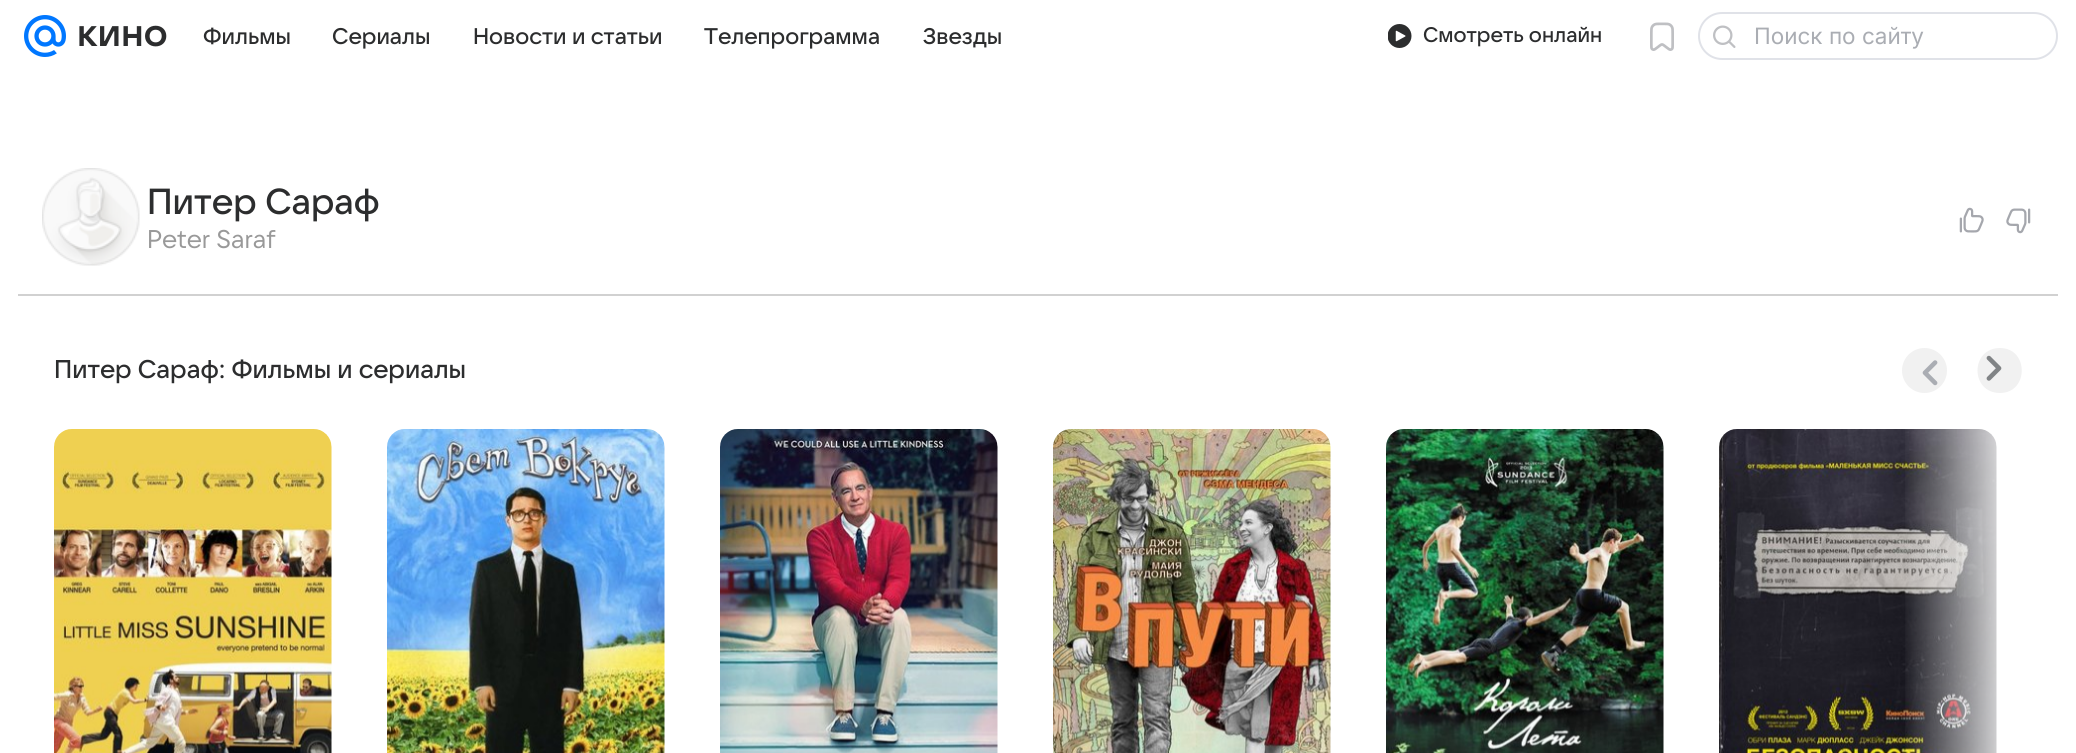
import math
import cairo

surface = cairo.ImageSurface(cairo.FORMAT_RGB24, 2076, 753)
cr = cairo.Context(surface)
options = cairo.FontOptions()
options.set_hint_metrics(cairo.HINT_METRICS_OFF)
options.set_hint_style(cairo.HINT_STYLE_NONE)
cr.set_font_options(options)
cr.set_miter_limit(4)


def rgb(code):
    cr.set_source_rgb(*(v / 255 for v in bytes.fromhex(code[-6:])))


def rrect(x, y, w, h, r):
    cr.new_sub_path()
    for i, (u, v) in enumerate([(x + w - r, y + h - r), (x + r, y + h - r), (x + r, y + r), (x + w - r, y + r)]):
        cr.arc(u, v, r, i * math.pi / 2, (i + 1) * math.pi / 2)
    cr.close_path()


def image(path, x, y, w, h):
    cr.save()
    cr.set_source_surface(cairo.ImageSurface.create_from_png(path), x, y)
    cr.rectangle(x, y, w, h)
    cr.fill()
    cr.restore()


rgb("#ffffff")
cr.paint()
image("img/1.png", 24, 15, 42, 42)
image("img/2.png", 79, 25, 88, 22)
image("img/3.png", 1388, 24, 24, 24)
image("img/4.png", 1650, 22, 24, 29)
rrect(1699, 13, 358, 46, 23)
rgb("#e0e2e8")
cr.stroke()
image("img/5.png", 1713, 25, 23, 23)
rgb("#d1d1d1")
cr.rectangle(18, 294, 2040, 2)
cr.fill()
image("img/6.png", 42, 168, 98, 98)
image("img/7.png", 1959, 207, 25, 26)
image("img/8.png", 2006, 208, 25, 26)
rgb("#f1f1f1")
cr.arc(1924.5, 370.5, 22.5, 0, 2 * math.pi)
cr.fill()
image("img/9.png", 1922, 360, 16, 26)
cr.new_path()
cr.move_to(2000, 393)
cr.curve_to(1970, 393, 1970, 348, 2000, 348)
cr.curve_to(2029, 348, 2029, 393, 2000, 393)
cr.close_path()
cr.fill()
image("img/10.png", 1986, 355, 16, 26)
image("img/11.png", 54, 429, 278, 324)
image("img/12.png", 387, 429, 278, 324)
image("img/13.png", 720, 429, 278, 324)
image("img/14.png", 1053, 429, 278, 324)
image("img/15.png", 1386, 429, 278, 324)
image("img/16.png", 1719, 429, 278, 324)
gradient = cairo.LinearGradient(1902, 693, 2022, 693)
gradient.add_color_stop_rgba(0, 1, 1, 1, 0)
gradient.add_color_stop_rgba(1, 1, 1, 1, 1)
cr.set_source(gradient)
cr.rectangle(1905, 429, 92, 324)
cr.fill()
cr.select_font_face("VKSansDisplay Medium")
cr.set_font_size(22.5)
rgb("#2c2d2e")
for x, y, s in [
    (203, 44, "Фильмы"),
    (332, 44, "Сериалы"),
    (473, 44, "Новости и статьи"),
    (704, 44, "Телепрограмма"),
    (923, 44, "Звезды"),
]:
    cr.move_to(x, y)
    cr.show_text(s)
cr.set_font_size(21)
cr.move_to(1423, 42)
cr.show_text("Смотреть онлайн")
cr.select_font_face("Inter")
cr.set_font_size(22.5)
rgb("#aaadb3")
cr.move_to(1754, 44)
cr.show_text("Поиск по сайту")
cr.select_font_face("VKSansDisplay Medium")
cr.set_font_size(36)
rgb("#2c2d2e")
cr.move_to(147, 214)
cr.show_text("Питер Сараф")
cr.select_font_face("VKSansDisplay")
cr.set_font_size(25.5)
rgb("#999999")
cr.move_to(147, 248)
cr.show_text("Peter Saraf")
cr.select_font_face("VKSansDisplay Medium")
rgb("#2c2d2e")
cr.move_to(54, 378)
cr.show_text("Питер Сараф: Фильмы и сериалы")
surface.write_to_png("page.png")
